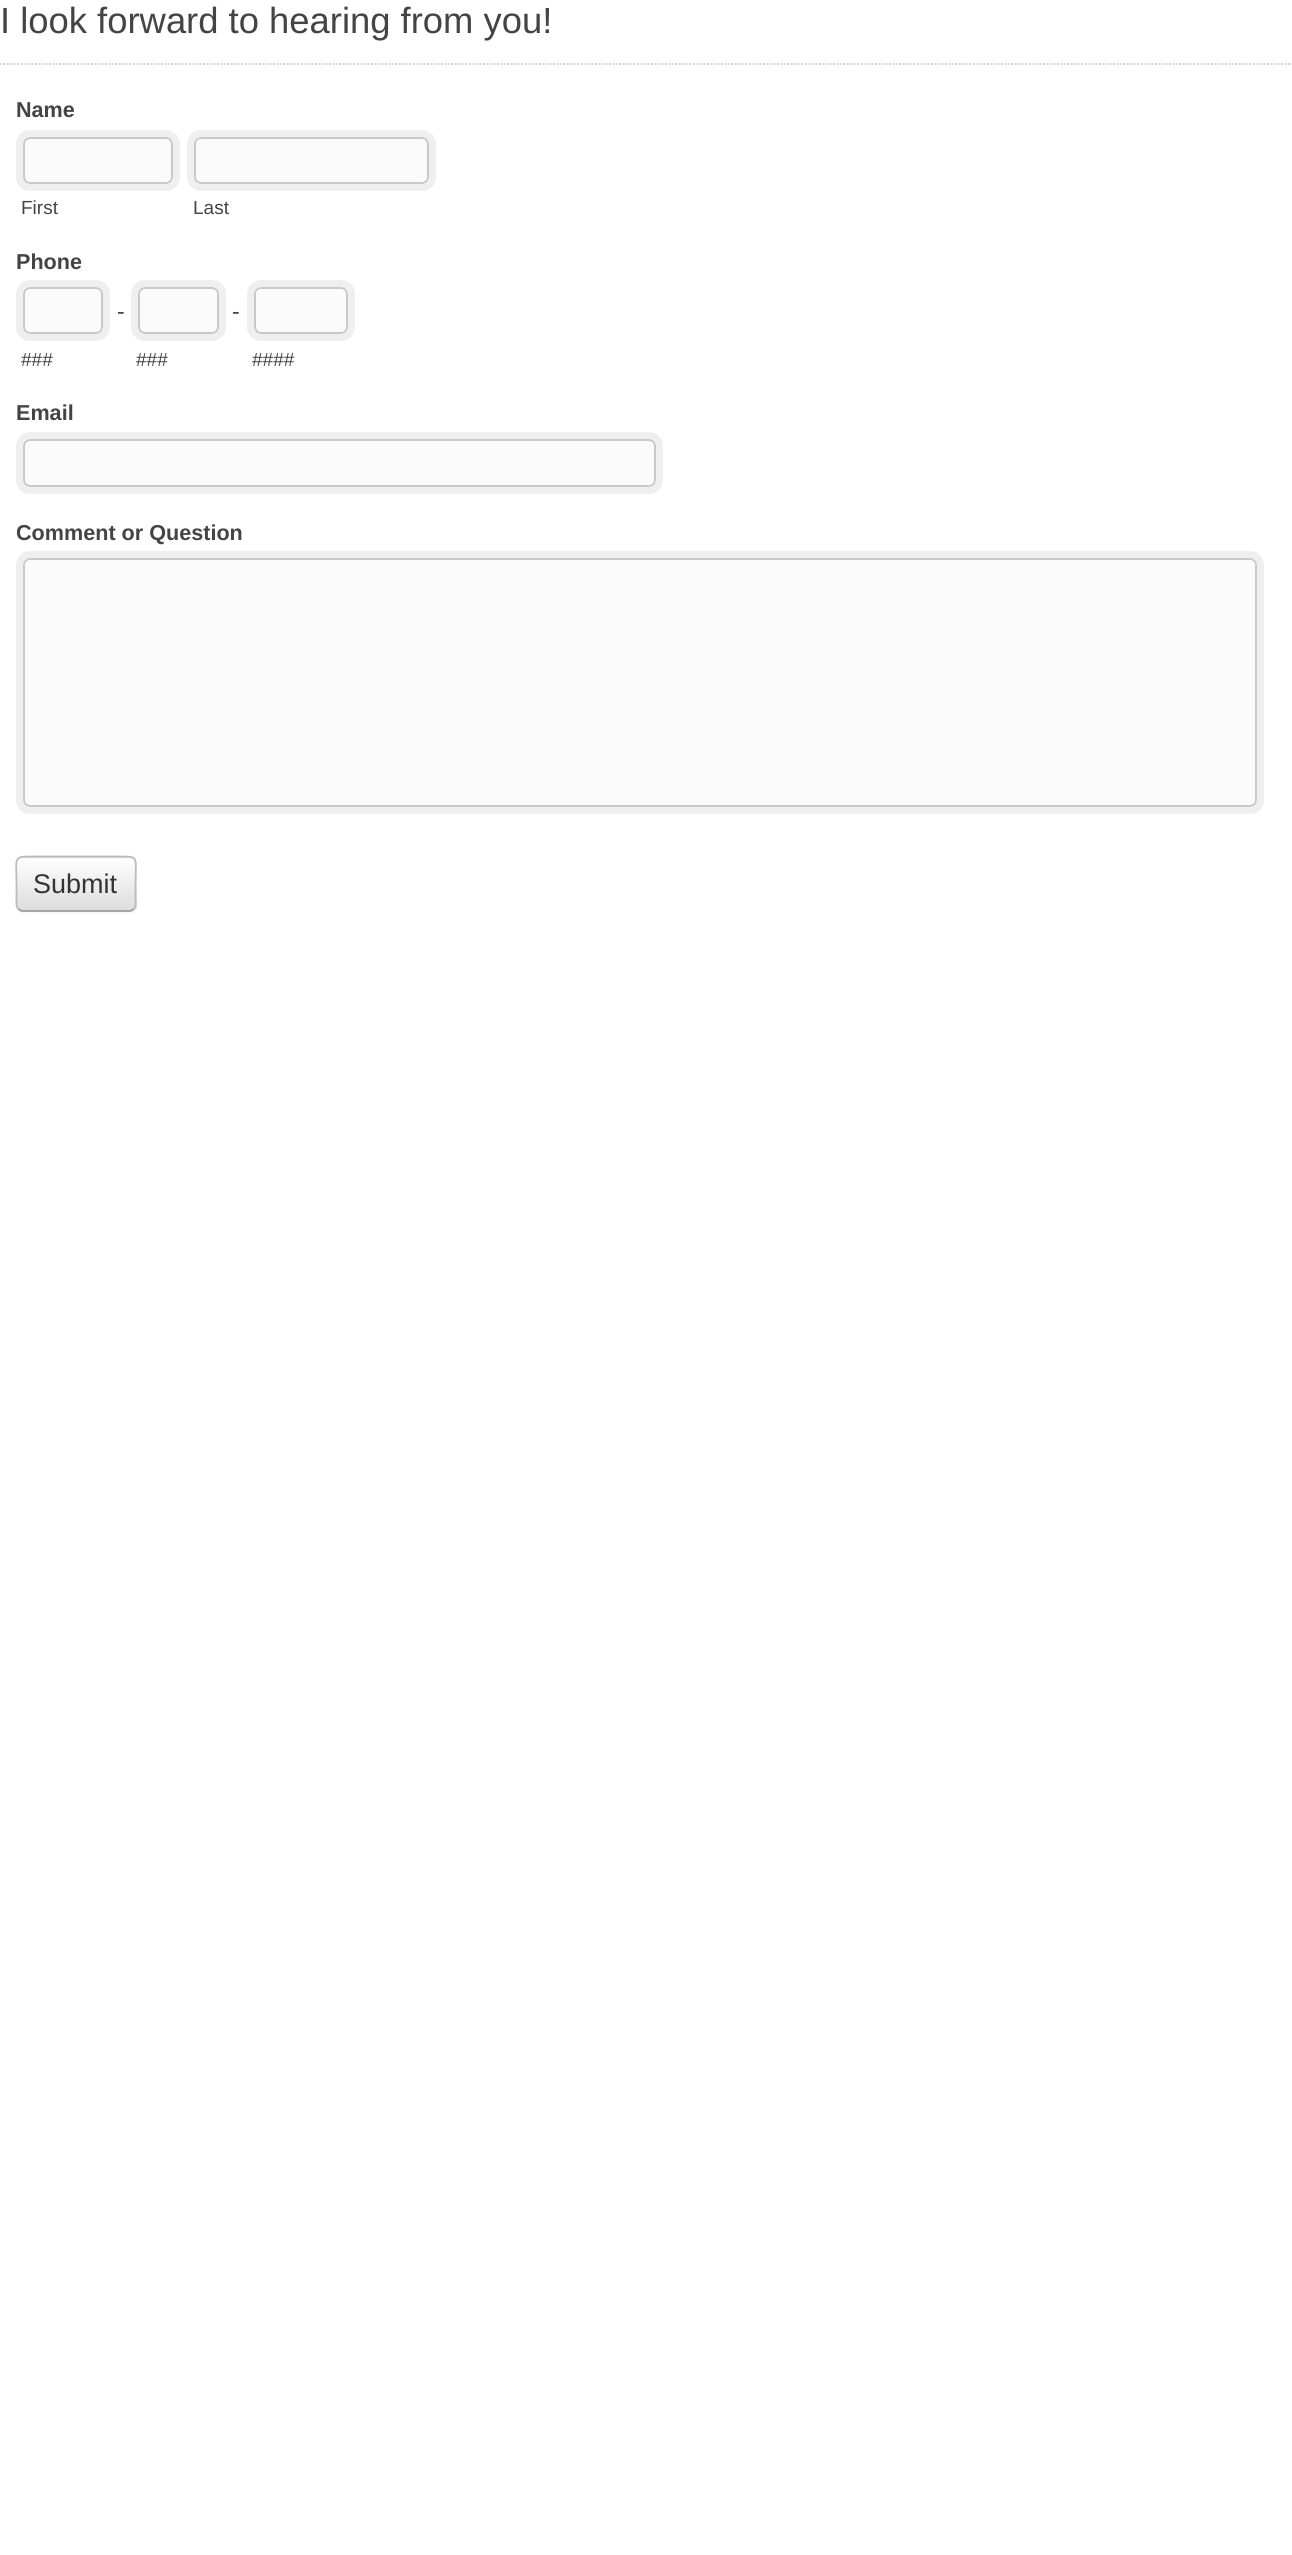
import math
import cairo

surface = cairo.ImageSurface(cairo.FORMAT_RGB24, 1292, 2555)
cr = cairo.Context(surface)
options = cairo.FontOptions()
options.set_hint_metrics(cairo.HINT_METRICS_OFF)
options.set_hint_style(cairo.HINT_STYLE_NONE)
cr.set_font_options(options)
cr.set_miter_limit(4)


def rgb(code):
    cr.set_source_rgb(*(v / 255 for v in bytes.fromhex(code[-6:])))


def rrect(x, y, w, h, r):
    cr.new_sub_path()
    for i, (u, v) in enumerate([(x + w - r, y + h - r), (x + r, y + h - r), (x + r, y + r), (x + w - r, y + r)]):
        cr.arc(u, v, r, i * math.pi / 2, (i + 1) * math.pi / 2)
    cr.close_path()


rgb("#ffffff")
cr.paint()
cr.new_path()
cr.move_to(0, 64)
cr.line_to(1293, 64)
rgb("#cccccc")
cr.set_line_width(1.8)
cr.set_dash([1.75, 1.75])
cr.stroke()
rgb("#fbfbfb")
rrect(16, 130, 164, 61, 14)
cr.fill()
rrect(24, 138, 148, 45, 6)
rgb("#c9c9c9")
cr.set_line_width(2)
cr.set_dash([])
cr.stroke()
rrect(19.5, 133.5, 157, 54, 10.5)
rgb("#efefef")
cr.set_line_width(7)
cr.stroke()
rgb("#fbfbfb")
rrect(187, 130, 249, 61, 14)
cr.fill()
rrect(195, 138, 233, 45, 6)
rgb("#c9c9c9")
cr.set_line_width(2)
cr.stroke()
rrect(190.5, 133.5, 242, 54, 10.5)
rgb("#efefef")
cr.set_line_width(7)
cr.stroke()
rgb("#fbfbfb")
rrect(16, 280, 94, 61, 14)
cr.fill()
rrect(24, 288, 78, 45, 6)
rgb("#c9c9c9")
cr.set_line_width(2)
cr.stroke()
rrect(19.5, 283.5, 87, 54, 10.5)
rgb("#efefef")
cr.set_line_width(7)
cr.stroke()
rgb("#fbfbfb")
rrect(131, 280, 95, 61, 14)
cr.fill()
rrect(139, 288, 79, 45, 6)
rgb("#c9c9c9")
cr.set_line_width(2)
cr.stroke()
rrect(134.5, 283.5, 88, 54, 10.5)
rgb("#efefef")
cr.set_line_width(7)
cr.stroke()
rgb("#fbfbfb")
rrect(247, 280, 108, 61, 14)
cr.fill()
rrect(255, 288, 92, 45, 6)
rgb("#c9c9c9")
cr.set_line_width(2)
cr.stroke()
rrect(250.5, 283.5, 101, 54, 10.5)
rgb("#efefef")
cr.set_line_width(7)
cr.stroke()
rgb("#fbfbfb")
rrect(16, 432, 647, 62, 14)
cr.fill()
rrect(24, 440, 631, 46, 6)
rgb("#c9c9c9")
cr.set_line_width(2)
cr.stroke()
rrect(19.5, 435.5, 640, 55, 10.5)
rgb("#efefef")
cr.set_line_width(7)
cr.stroke()
rgb("#fbfbfb")
rrect(16, 551, 1248, 263, 14)
cr.fill()
rrect(24, 559, 1232, 247, 6)
rgb("#c9c9c9")
cr.set_line_width(2)
cr.stroke()
rrect(19.5, 554.5, 1241, 256, 10.5)
rgb("#efefef")
cr.set_line_width(7)
cr.stroke()
rgb("#f8f8f8")
cr.new_path()
cr.move_to(16, 907)
cr.curve_to(16, 911, 19, 914, 23, 914)
cr.line_to(130, 914)
cr.curve_to(134, 914, 137, 911, 137, 907)
cr.line_to(137, 865)
cr.line_to(136, 862)
cr.line_to(136, 891)
cr.curve_to(136, 915, 138, 912, 112, 912)
cr.line_to(41, 912)
cr.curve_to(39, 912, 22, 915, 18, 910)
cr.close_path()
cr.fill()
cr.save()
rrect(16, 856, 121, 56, 7)
cr.clip()
gradient = cairo.LinearGradient(18, 805, 18, 858)
gradient.add_color_stop_rgba(0, 0.996, 0.996, 0.996, 1)
gradient.add_color_stop_rgba(1, 0.867, 0.867, 0.867, 1)
cr.set_source(gradient)
cr.rectangle(16, 856, 121, 2)
cr.fill()
gradient = cairo.LinearGradient(18, 858, 18, 910)
gradient.add_color_stop_rgba(0, 0.996, 0.996, 0.996, 1)
gradient.add_color_stop_rgba(1, 0.867, 0.867, 0.867, 1)
cr.set_source(gradient)
cr.rectangle(16, 858, 121, 52)
cr.fill()
cr.restore()
cr.new_path()
cr.move_to(134, 909)
cr.curve_to(132.5, 910, 131, 911, 129.5, 911)
cr.line_to(23, 911)
cr.curve_to(21, 911, 19.5, 910, 18.5, 909)
rgb("#999999")
cr.set_line_width(1.8)
cr.stroke()
cr.new_path()
cr.move_to(18.5, 909)
cr.curve_to(15.5, 906, 16.5, 901, 16.5, 898)
cr.line_to(16.5, 884)
cr.curve_to(16.5, 854.5, 11.5, 856.5, 40.5, 856.5)
cr.line_to(111.5, 856.5)
cr.curve_to(141, 856.5, 135.5, 854.5, 135.5, 884)
cr.line_to(135.5, 898)
cr.curve_to(135.5, 901, 136.5, 906, 134, 909)
rgb("#bbbbbb")
cr.stroke()
cr.select_font_face("Liberation Sans")
cr.set_font_size(36.4)
rgb("#444444")
cr.move_to(0, 33)
cr.show_text("I look forward to hearing from you!")
cr.select_font_face("Liberation Sans", cairo.FONT_SLANT_NORMAL, cairo.FONT_WEIGHT_BOLD)
cr.set_font_size(21.6)
cr.move_to(16, 117)
cr.show_text("Name")
cr.select_font_face("Liberation Sans")
cr.set_font_size(19)
cr.move_to(21, 214)
cr.show_text("First")
cr.move_to(193, 214)
cr.show_text("Last")
cr.select_font_face("Liberation Sans", cairo.FONT_SLANT_NORMAL, cairo.FONT_WEIGHT_BOLD)
cr.set_font_size(21.6)
cr.move_to(16, 269)
cr.show_text("Phone")
cr.select_font_face("Liberation Sans")
cr.set_font_size(23)
cr.move_to(117, 319)
cr.show_text("-")
cr.set_font_size(19)
cr.move_to(21, 366)
cr.show_text("###")
cr.set_font_size(23)
cr.move_to(232, 319)
cr.show_text("-")
cr.set_font_size(19)
cr.move_to(136, 366)
cr.show_text("###")
cr.move_to(252, 366)
cr.show_text("####")
cr.select_font_face("Liberation Sans", cairo.FONT_SLANT_NORMAL, cairo.FONT_WEIGHT_BOLD)
cr.set_font_size(21.6)
cr.move_to(16, 420)
cr.show_text("Email")
cr.move_to(16, 540)
cr.show_text("Comment or Question")
cr.select_font_face("Liberation Sans")
cr.set_font_size(27)
rgb("#333333")
cr.move_to(33, 893)
cr.show_text("Submit")
surface.write_to_png("page.png")
